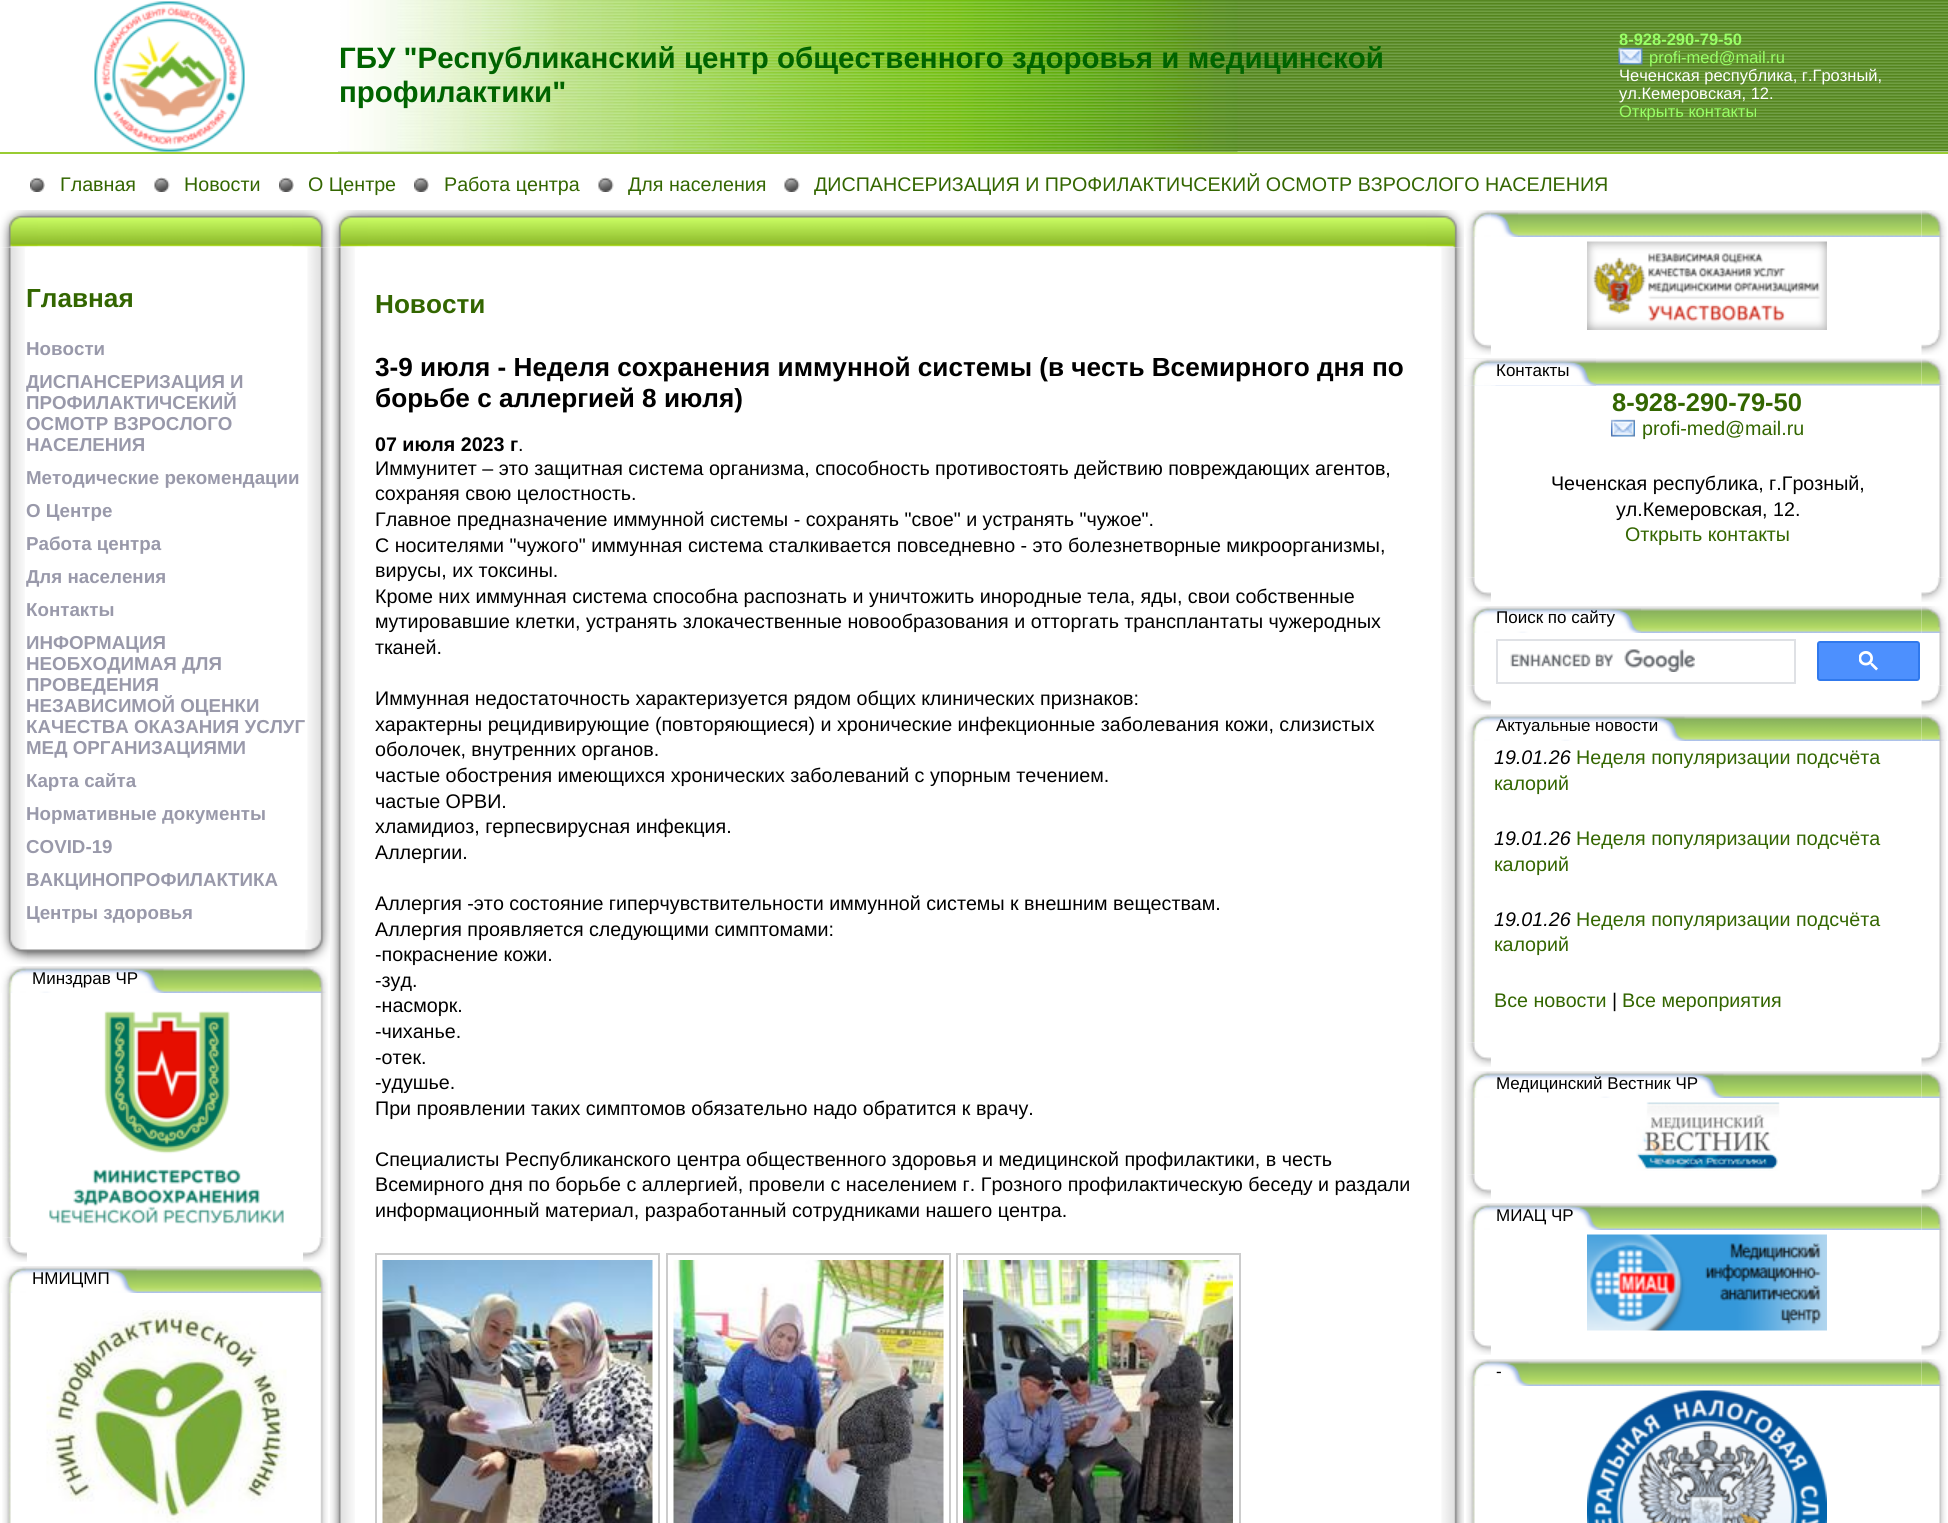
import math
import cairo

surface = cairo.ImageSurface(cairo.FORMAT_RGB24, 1948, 1523)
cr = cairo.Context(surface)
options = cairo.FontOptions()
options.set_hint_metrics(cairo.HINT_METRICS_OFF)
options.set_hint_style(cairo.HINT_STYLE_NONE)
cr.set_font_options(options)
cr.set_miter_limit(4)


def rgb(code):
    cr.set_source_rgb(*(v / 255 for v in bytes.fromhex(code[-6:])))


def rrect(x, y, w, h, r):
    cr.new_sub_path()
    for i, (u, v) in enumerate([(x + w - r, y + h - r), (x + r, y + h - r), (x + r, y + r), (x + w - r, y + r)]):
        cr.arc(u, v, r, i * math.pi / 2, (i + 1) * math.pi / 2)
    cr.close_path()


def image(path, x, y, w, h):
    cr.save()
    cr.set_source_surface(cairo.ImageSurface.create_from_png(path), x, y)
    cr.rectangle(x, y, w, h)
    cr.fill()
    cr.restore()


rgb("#ffffff")
cr.paint()
image("img/1.png", 338, 0, 1610, 152)
image("img/2.png", 94, 1, 151, 151)
image("img/3.png", 338, 0, 900, 152)
image("img/4.png", 1618, 47, 25, 18)
rgb("#99cc33")
cr.rectangle(0, 152, 1948, 2)
cr.fill()
image("img/5.png", 30, 177, 15, 15)
image("img/6.png", 154, 177, 16, 15)
image("img/7.png", 279, 177, 15, 15)
image("img/7.png", 414, 177, 15, 15)
image("img/8.png", 598, 177, 16, 15)
image("img/6.png", 784, 177, 16, 15)
image("img/9.png", 37, 210, 256, 37)
image("img/10.png", 292, 210, 38, 38)
image("img/12.png", 0, 247, 25, 683)
image("img/11.png", 0, 210, 38, 38)
image("img/13.png", 307, 247, 23, 683)
image("img/14.png", 27, 949, 278, 15)
image("img/15.png", 305, 930, 25, 34)
image("img/16.png", 0, 930, 27, 34)
image("img/17.png", 26, 966, 277, 27)
image("img/18.png", 26, 968, 138, 25)
image("img/19.png", 0, 966, 26, 27)
image("img/20.png", 303, 966, 25, 27)
image("img/21.png", 2, 993, 9, 245)
image("img/22.png", 49, 1011, 235, 213)
image("img/23.png", 320, 993, 8, 245)
image("img/24.png", 2, 1237, 25, 25)
image("img/25.png", 303, 1237, 25, 25)
image("img/26.png", 26, 1266, 277, 27)
image("img/27.png", 26, 1268, 111, 25)
image("img/19.png", 0, 1266, 26, 27)
image("img/20.png", 303, 1266, 25, 27)
image("img/28.png", 2, 1293, 9, 230)
image("img/29.png", 46, 1310, 241, 213)
image("img/30.png", 320, 1293, 8, 230)
image("img/31.png", 367, 210, 1060, 37)
image("img/32.png", 1426, 210, 38, 38)
image("img/34.png", 330, 247, 25, 1276)
image("img/33.png", 330, 210, 38, 38)
image("img/35.png", 1441, 247, 23, 1276)
cr.rectangle(376, 1254, 283, 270)
rgb("#cccccc")
cr.stroke()
image("img/36.png", 382, 1260, 271, 263)
cr.rectangle(667, 1254, 283, 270)
cr.stroke()
image("img/37.png", 673, 1260, 271, 263)
cr.rectangle(957, 1254, 283, 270)
cr.stroke()
image("img/38.png", 963, 1260, 270, 263)
image("img/39.png", 1491, 210, 431, 27)
image("img/40.png", 1491, 212, 27, 25)
image("img/41.png", 1464, 210, 27, 27)
image("img/42.png", 1921, 210, 26, 27)
image("img/43.png", 1466, 237, 9, 93)
image("img/44.png", 1587, 241, 240, 89)
image("img/45.png", 1939, 237, 8, 93)
image("img/46.png", 1466, 330, 25, 25)
image("img/47.png", 1921, 330, 26, 25)
image("img/48.png", 1464, 358, 458, 28)
image("img/49.png", 1464, 358, 132, 28)
image("img/52.png", 1464, 385, 32, 193)
image("img/50.png", 1464, 358, 27, 28)
image("img/54.png", 1921, 385, 26, 193)
image("img/51.png", 1921, 358, 26, 28)
image("img/53.png", 1611, 419, 24, 18)
image("img/55.png", 1466, 577, 25, 25)
image("img/56.png", 1921, 577, 26, 25)
image("img/57.png", 1490, 606, 432, 27)
image("img/58.png", 1490, 608, 151, 25)
image("img/59.png", 1464, 606, 26, 27)
image("img/42.png", 1921, 606, 26, 27)
image("img/60.png", 1466, 633, 9, 53)
cr.rectangle(1497, 640, 298, 43)
rgb("#dfe1e5")
cr.stroke()
image("img/61.png", 1510, 649, 185, 23)
rgb("#4d90fe")
rrect(1818, 642, 101, 38, 2)
cr.fill_preserve()
rgb("#3079ed")
cr.stroke()
image("img/62.png", 1859, 651, 19, 20)
image("img/63.png", 1939, 633, 8, 53)
image("img/64.png", 1466, 685, 25, 25)
image("img/56.png", 1921, 685, 26, 25)
image("img/65.png", 1490, 714, 432, 27)
image("img/66.png", 1490, 716, 195, 25)
image("img/59.png", 1464, 714, 26, 27)
image("img/42.png", 1921, 714, 26, 27)
image("img/67.png", 1466, 741, 9, 302)
image("img/68.png", 1939, 741, 7, 302)
image("img/55.png", 1466, 1042, 25, 25)
image("img/69.png", 1921, 1042, 26, 25)
image("img/70.png", 1490, 1071, 432, 27)
image("img/71.png", 1490, 1073, 234, 25)
image("img/59.png", 1464, 1071, 26, 27)
image("img/42.png", 1921, 1071, 26, 27)
image("img/72.png", 1466, 1098, 9, 77)
image("img/73.png", 1636, 1102, 144, 69)
image("img/74.png", 1939, 1098, 8, 77)
image("img/64.png", 1466, 1174, 25, 25)
image("img/56.png", 1921, 1174, 26, 25)
image("img/75.png", 1490, 1203, 432, 27)
image("img/76.png", 1490, 1205, 111, 25)
image("img/59.png", 1464, 1203, 26, 27)
image("img/42.png", 1921, 1203, 26, 27)
image("img/77.png", 1466, 1230, 9, 101)
image("img/78.png", 1587, 1234, 240, 97)
image("img/79.png", 1939, 1230, 8, 101)
image("img/64.png", 1466, 1330, 25, 25)
image("img/56.png", 1921, 1330, 26, 25)
image("img/80.png", 1490, 1359, 432, 27)
image("img/81.png", 1490, 1361, 39, 25)
image("img/59.png", 1464, 1359, 26, 27)
image("img/42.png", 1921, 1359, 26, 27)
image("img/82.png", 1466, 1386, 9, 137)
image("img/83.png", 1587, 1390, 240, 133)
image("img/84.png", 1939, 1386, 8, 137)
cr.select_font_face("Liberation Sans", cairo.FONT_SLANT_NORMAL, cairo.FONT_WEIGHT_BOLD)
cr.set_font_size(29.5)
rgb("#006400")
cr.move_to(339, 68)
cr.show_text("ГБУ \"Республиканский центр общественного здоровья и медицинской")
cr.move_to(339, 102)
cr.show_text("профилактики\"")
cr.set_font_size(16.5)
rgb("#99ff66")
cr.move_to(1619, 45)
cr.show_text("8-928-290-79-50")
cr.select_font_face("Liberation Sans")
cr.move_to(1649, 63)
cr.show_text("profi-med@mail.ru")
rgb("#ffffff")
cr.move_to(1619, 81)
cr.show_text("Чеченская республика, г.Грозный,")
cr.move_to(1619, 99)
cr.show_text("ул.Кемеровская, 12.")
rgb("#99ff66")
cr.move_to(1619, 117)
cr.show_text("Открыть контакты")
cr.set_font_size(19.68)
rgb("#336600")
for x, y, s in [
    (60, 191, "Главная"),
    (184, 191, "Новости"),
    (308, 191, "О Центре"),
    (444, 191, "Работа центра"),
    (628, 191, "Для населения"),
    (814, 191, "ДИСПАНСЕРИЗАЦИЯ И ПРОФИЛАКТИЧСЕКИЙ ОСМОТР ВЗРОСЛОГО НАСЕЛЕНИЯ"),
]:
    cr.move_to(x, y)
    cr.show_text(s)
cr.select_font_face("Liberation Sans", cairo.FONT_SLANT_NORMAL, cairo.FONT_WEIGHT_BOLD)
cr.set_font_size(26.15)
cr.move_to(26, 307)
cr.show_text("Главная")
cr.set_font_size(18.75)
rgb("#9999aa")
for x, y, s in [
    (26, 355, "Новости"),
    (26, 388, "ДИСПАНСЕРИЗАЦИЯ И"),
    (26, 409, "ПРОФИЛАКТИЧСЕКИЙ"),
    (26, 430, "ОСМОТР ВЗРОСЛОГО"),
    (26, 451, "НАСЕЛЕНИЯ"),
    (26, 484, "Методические рекомендации"),
    (26, 517, "О Центре"),
    (26, 550, "Работа центра"),
    (26, 583, "Для населения"),
    (26, 616, "Контакты"),
    (26, 649, "ИНФОРМАЦИЯ"),
    (26, 670, "НЕОБХОДИМАЯ ДЛЯ"),
    (26, 691, "ПРОВЕДЕНИЯ"),
    (26, 712, "НЕЗАВИСИМОЙ ОЦЕНКИ"),
    (26, 733, "КАЧЕСТВА ОКАЗАНИЯ УСЛУГ"),
    (26, 754, "МЕД ОРГАНИЗАЦИЯМИ"),
    (26, 787, "Карта сайта"),
    (26, 820, "Нормативные документы"),
    (26, 853, "COVID-19"),
    (26, 886, "ВАКЦИНОПРОФИЛАКТИКА"),
    (26, 919, "Центры здоровья"),
]:
    cr.move_to(x, y)
    cr.show_text(s)
cr.select_font_face("Liberation Sans")
cr.set_font_size(17)
rgb("#000000")
cr.move_to(32, 984)
cr.show_text("Минздрав ЧР")
cr.move_to(32, 1284)
cr.show_text("НМИЦМП")
cr.select_font_face("Liberation Sans", cairo.FONT_SLANT_NORMAL, cairo.FONT_WEIGHT_BOLD)
cr.set_font_size(26.15)
rgb("#336600")
cr.move_to(375, 313)
cr.show_text("Новости")
rgb("#000000")
cr.move_to(375, 376)
cr.show_text("3-9 июля - Неделя сохранения иммунной системы (в честь Всемирного дня по")
cr.move_to(375, 407)
cr.show_text("борьбе с аллергией 8 июля)")
cr.set_font_size(19.68)
cr.move_to(375, 451)
cr.show_text("07 июля 2023 г")
cr.select_font_face("Liberation Sans")
for x, y, s in [
    (518, 451, "."),
    (375, 475, "Иммунитет – это защитная система организма, способность противостоять действию повреждающих агентов,"),
    (375, 500, "сохраняя свою целостность."),
    (375, 526, "Главное предназначение иммунной системы - сохранять \"свое\" и устранять \"чужое\"."),
    (375, 552, "С носителями \"чужого\" иммунная система сталкивается повседневно - это болезнетворные микроорганизмы,"),
    (375, 577, "вирусы, их токсины."),
    (375, 603, "Кроме них иммунная система способна распознать и уничтожить инородные тела, яды, свои собственные"),
    (375, 628, "мутировавшие клетки, устранять злокачественные новообразования и отторгать трансплантаты чужеродных"),
    (375, 654, "тканей."),
    (375, 705, "Иммунная недостаточность характеризуется рядом общих клинических признаков:"),
    (375, 731, "характерны рецидивирующие (повторяющиеся) и хронические инфекционные заболевания кожи, слизистых"),
    (375, 756, "оболочек, внутренних органов."),
    (375, 782, "частые обострения имеющихся хронических заболеваний с упорным течением."),
    (375, 808, "частые ОРВИ."),
    (375, 833, "хламидиоз, герпесвирусная инфекция."),
    (375, 859, "Аллергии."),
    (375, 910, "Аллергия -это состояние гиперчувствительности иммунной системы к внешним веществам."),
    (375, 936, "Аллергия проявляется следующими симптомами:"),
    (375, 961, "-покраснение кожи."),
    (375, 987, "-зуд."),
    (375, 1012, "-насморк."),
    (375, 1038, "-чиханье."),
    (375, 1064, "-отек."),
    (375, 1089, "-удушье."),
    (375, 1115, "При проявлении таких симптомов обязательно надо обратится к врачу."),
    (375, 1166, "Специалисты Республиканского центра общественного здоровья и медицинской профилактики, в честь"),
    (375, 1191, "Всемирного дня по борьбе с аллергией, провели с населением г. Грозного профилактическую беседу и раздали"),
    (375, 1217, "информационный материал, разработанный сотрудниками нашего центра."),
]:
    cr.move_to(x, y)
    cr.show_text(s)
cr.set_font_size(17)
cr.move_to(1496, 376)
cr.show_text("Контакты")
cr.select_font_face("Liberation Sans", cairo.FONT_SLANT_NORMAL, cairo.FONT_WEIGHT_BOLD)
cr.set_font_size(25.5)
rgb("#336600")
cr.move_to(1612, 411)
cr.show_text("8-928-290-79-50")
cr.select_font_face("Liberation Sans")
cr.set_font_size(19.68)
cr.move_to(1642, 435)
cr.show_text("profi-med@mail.ru")
rgb("#000000")
cr.move_to(1551, 490)
cr.show_text("Чеченская республика, г.Грозный,")
cr.move_to(1616, 516)
cr.show_text("ул.Кемеровская, 12.")
rgb("#336600")
cr.move_to(1625, 541)
cr.show_text("Открыть контакты")
cr.set_font_size(17)
rgb("#000000")
cr.move_to(1496, 623)
cr.show_text("Поиск по сайту")
cr.move_to(1496, 731)
cr.show_text("Актуальные новости")
cr.select_font_face("Liberation Sans", cairo.FONT_SLANT_ITALIC)
cr.set_font_size(19.68)
cr.move_to(1494, 764)
cr.show_text("19.01.26")
cr.select_font_face("Liberation Sans")
rgb("#336600")
cr.move_to(1576, 764)
cr.show_text("Неделя популяризации подсчёта")
cr.move_to(1494, 790)
cr.show_text("калорий")
cr.select_font_face("Liberation Sans", cairo.FONT_SLANT_ITALIC)
rgb("#000000")
cr.move_to(1494, 845)
cr.show_text("19.01.26")
cr.select_font_face("Liberation Sans")
rgb("#336600")
cr.move_to(1576, 845)
cr.show_text("Неделя популяризации подсчёта")
cr.move_to(1494, 871)
cr.show_text("калорий")
cr.select_font_face("Liberation Sans", cairo.FONT_SLANT_ITALIC)
rgb("#000000")
cr.move_to(1494, 926)
cr.show_text("19.01.26")
cr.select_font_face("Liberation Sans")
rgb("#336600")
for x, y, s in [
    (1576, 926, "Неделя популяризации подсчёта"),
    (1494, 951, "калорий"),
    (1494, 1007, "Все новости"),
]:
    cr.move_to(x, y)
    cr.show_text(s)
rgb("#000000")
cr.move_to(1612, 1007)
cr.show_text("|")
rgb("#336600")
cr.move_to(1622, 1007)
cr.show_text("Все мероприятия")
cr.set_font_size(17)
rgb("#000000")
for x, y, s in [
    (1496, 1089, "Медицинский Вестник ЧР"),
    (1496, 1221, "МИАЦ ЧР"),
    (1496, 1377, "-"),
]:
    cr.move_to(x, y)
    cr.show_text(s)
surface.write_to_png("page.png")
